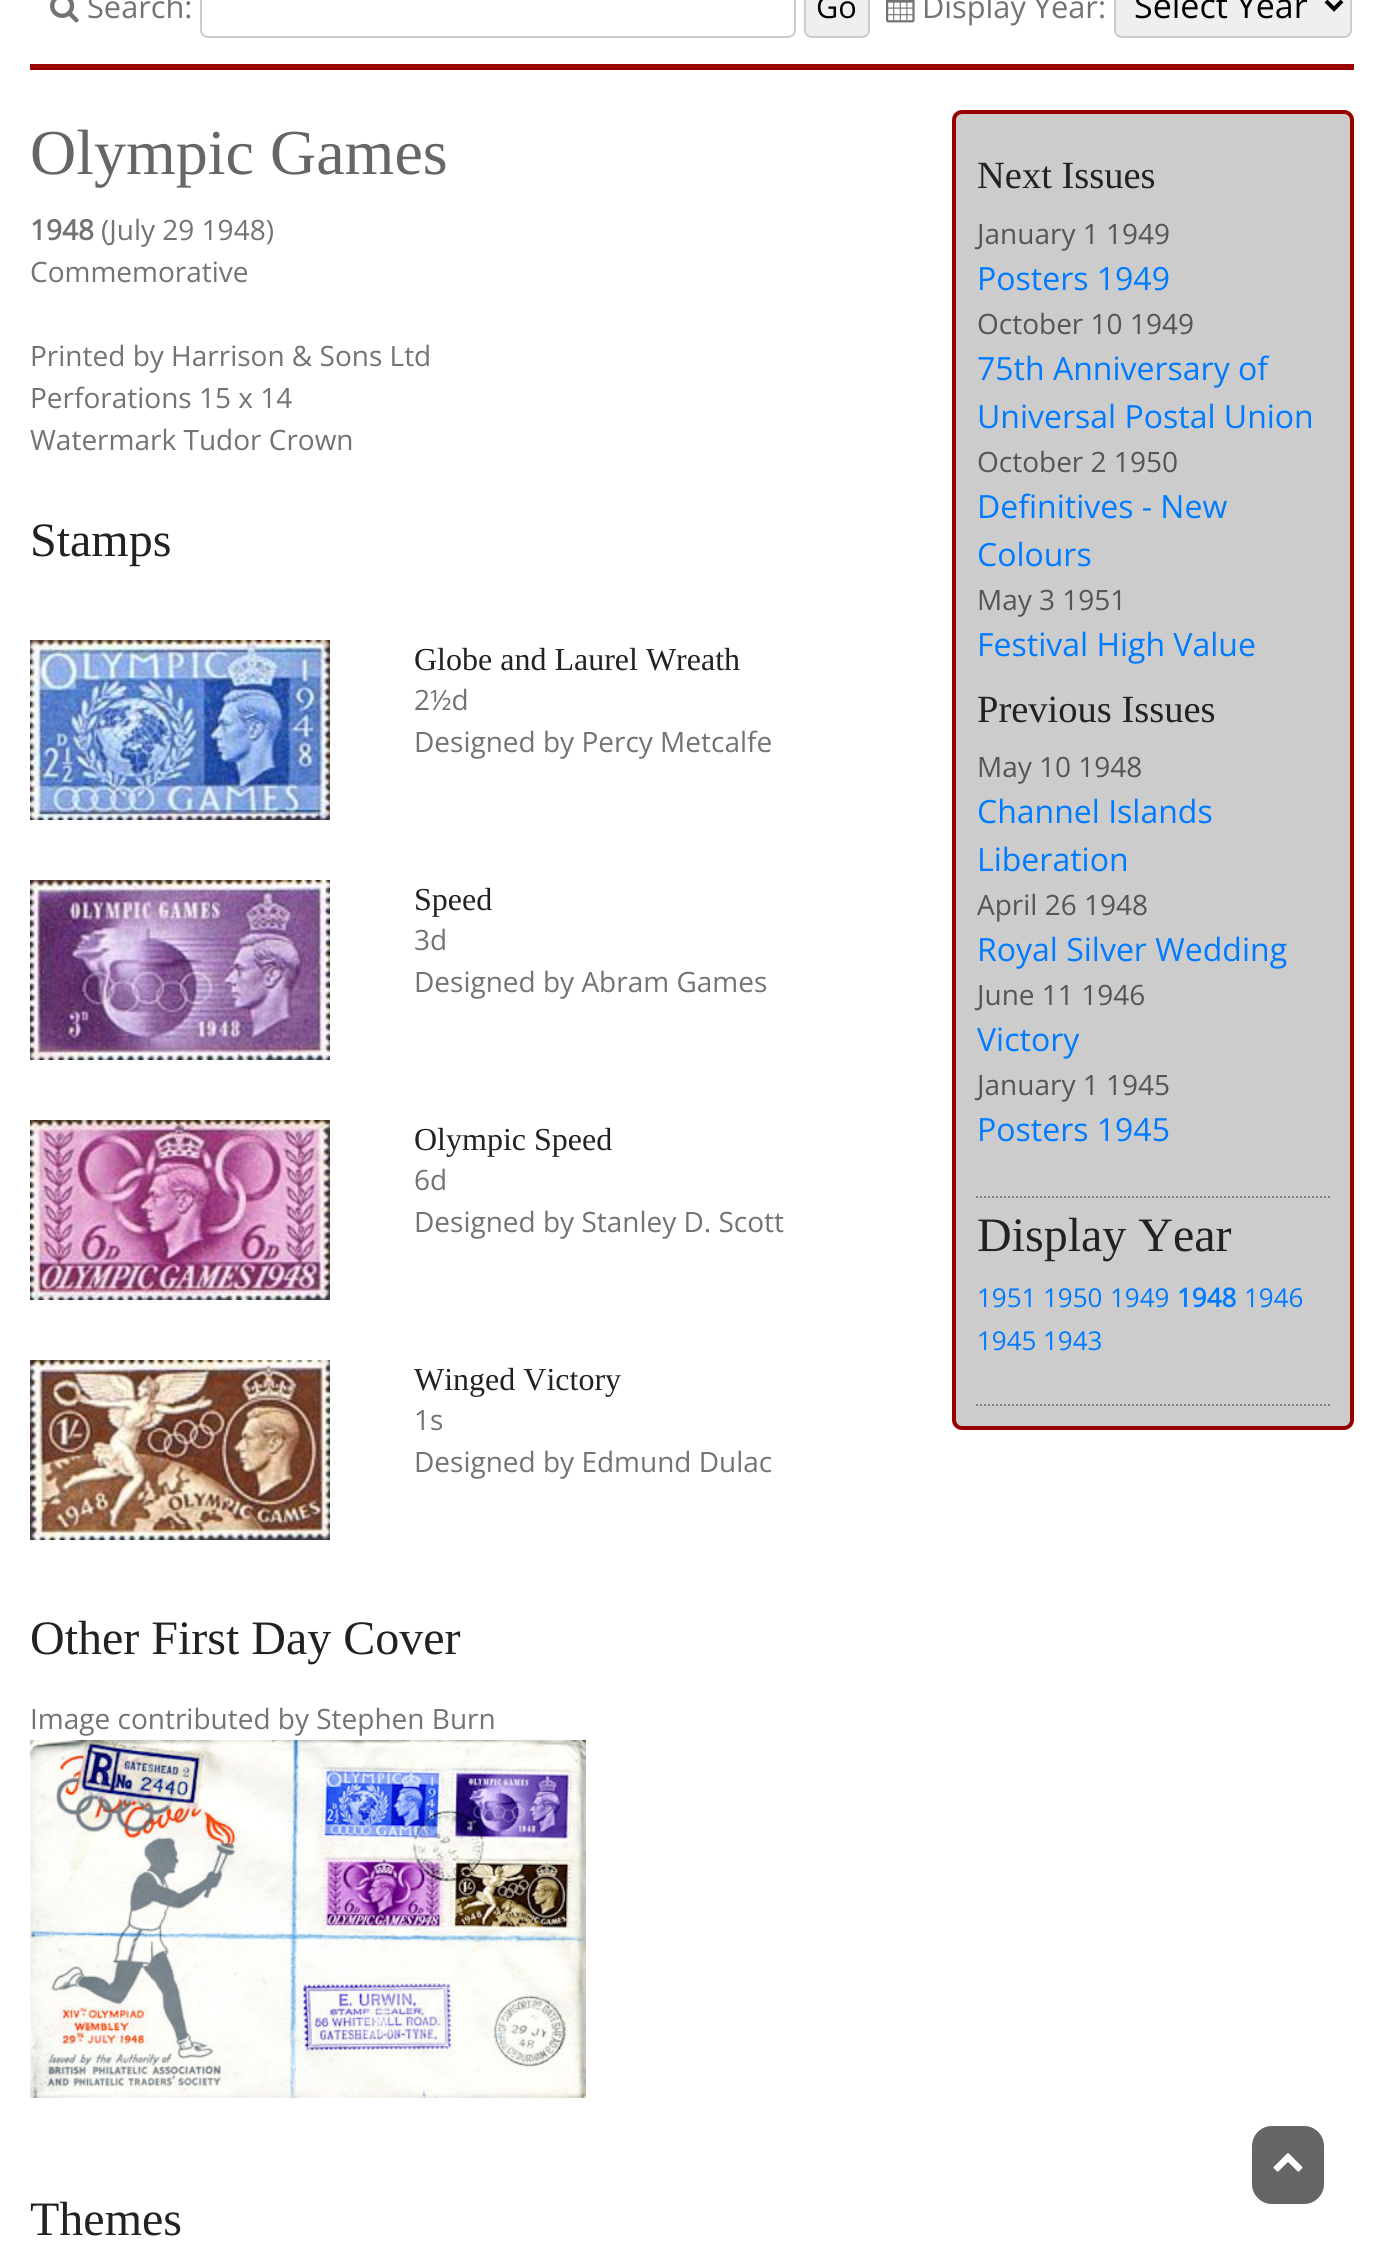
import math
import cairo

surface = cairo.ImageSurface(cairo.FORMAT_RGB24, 1384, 2244)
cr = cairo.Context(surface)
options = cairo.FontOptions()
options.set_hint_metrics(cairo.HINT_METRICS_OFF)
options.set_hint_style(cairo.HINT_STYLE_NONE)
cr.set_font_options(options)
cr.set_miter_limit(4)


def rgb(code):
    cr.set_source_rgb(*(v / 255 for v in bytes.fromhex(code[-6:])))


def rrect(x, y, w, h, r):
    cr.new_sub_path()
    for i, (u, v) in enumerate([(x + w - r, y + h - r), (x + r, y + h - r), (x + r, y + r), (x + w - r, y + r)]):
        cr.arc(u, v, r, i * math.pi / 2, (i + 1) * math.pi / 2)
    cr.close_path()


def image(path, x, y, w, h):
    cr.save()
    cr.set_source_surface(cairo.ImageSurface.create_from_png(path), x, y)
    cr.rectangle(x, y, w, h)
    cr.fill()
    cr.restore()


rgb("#ffffff")
cr.paint()
rgb("#990000")
cr.rectangle(30, 64, 1324, 6)
cr.fill()
image("img/1.png", 50, 0, 29, 23)
rrect(201, -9, 594, 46, 7)
rgb("#cccccc")
cr.stroke()
rgb("#efefef")
rrect(805, -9, 64, 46, 7)
cr.fill_preserve()
rgb("#cccccc")
cr.stroke()
image("img/2.png", 886, 0, 29, 23)
rgb("#efefef")
rrect(1115, -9, 236, 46, 7)
cr.fill_preserve()
rgb("#cccccc")
cr.stroke()
cr.new_path()
cr.move_to(1326, 1)
cr.line_to(1334, 9)
cr.line_to(1342, 1)
rgb("#000000")
cr.set_line_width(4)
cr.stroke()
image("img/3.png", 30, 640, 300, 180)
image("img/4.png", 30, 880, 300, 180)
image("img/5.png", 30, 1120, 300, 180)
image("img/6.png", 30, 1360, 300, 180)
image("img/7.png", 30, 1740, 556, 358)
rgb("#cccccc")
rrect(954, 112, 398, 1316, 8)
cr.fill_preserve()
rgb("#990000")
cr.stroke()
cr.new_path()
cr.move_to(976, 1197)
cr.line_to(1330, 1197)
rgb("#808080")
cr.set_line_width(2)
cr.set_dash([2, 2])
cr.stroke()
cr.new_path()
cr.move_to(976, 1405)
cr.line_to(1330, 1405)
cr.stroke()
rgb("#666666")
rrect(1252, 2126, 72, 78, 20)
cr.fill()
image("img/8.png", 1273, 2153, 30, 19)
cr.select_font_face("Open Sans")
cr.set_font_size(30.75)
rgb("#737373")
cr.move_to(87, 18)
cr.show_text("Search:")
rgb("#000000")
cr.move_to(816, 18)
cr.show_text("Go")
rgb("#737373")
cr.move_to(922, 18)
cr.show_text("Display Year:")
cr.set_font_size(34)
rgb("#000000")
cr.move_to(1134, 18)
cr.show_text("Select Year")
cr.select_font_face("Liberation Serif")
cr.set_font_size(64)
rgb("#666666")
cr.move_to(30, 174)
cr.show_text("Olympic Games")
cr.select_font_face("Open Sans", cairo.FONT_SLANT_NORMAL, cairo.FONT_WEIGHT_BOLD)
cr.set_font_size(28)
rgb("#737373")
cr.move_to(30, 240)
cr.show_text("1948")
cr.select_font_face("Open Sans")
for x, y, s in [
    (101, 240, "(July 29 1948)"),
    (30, 282, "Commemorative"),
    (30, 366, "Printed by Harrison & Sons Ltd"),
    (30, 408, "Perforations 15 x 14"),
    (30, 450, "Watermark Tudor Crown"),
]:
    cr.move_to(x, y)
    cr.show_text(s)
cr.select_font_face("Liberation Serif")
cr.set_font_size(48)
rgb("#222222")
cr.move_to(30, 556)
cr.show_text("Stamps")
cr.set_font_size(32)
cr.move_to(414, 670)
cr.show_text("Globe and Laurel Wreath")
cr.select_font_face("Open Sans")
cr.set_font_size(28)
rgb("#737373")
cr.move_to(414, 710)
cr.show_text("2½d")
cr.move_to(414, 752)
cr.show_text("Designed by Percy Metcalfe")
cr.select_font_face("Liberation Serif")
cr.set_font_size(32)
rgb("#222222")
cr.move_to(414, 910)
cr.show_text("Speed")
cr.select_font_face("Open Sans")
cr.set_font_size(28)
rgb("#737373")
cr.move_to(414, 950)
cr.show_text("3d")
cr.move_to(414, 992)
cr.show_text("Designed by Abram Games")
cr.select_font_face("Liberation Serif")
cr.set_font_size(32)
rgb("#222222")
cr.move_to(414, 1150)
cr.show_text("Olympic Speed")
cr.select_font_face("Open Sans")
cr.set_font_size(28)
rgb("#737373")
cr.move_to(414, 1190)
cr.show_text("6d")
cr.move_to(414, 1232)
cr.show_text("Designed by Stanley D. Scott")
cr.select_font_face("Liberation Serif")
cr.set_font_size(32)
rgb("#222222")
cr.move_to(414, 1390)
cr.show_text("Winged Victory")
cr.select_font_face("Open Sans")
cr.set_font_size(28)
rgb("#737373")
cr.move_to(414, 1430)
cr.show_text("1s")
cr.move_to(414, 1472)
cr.show_text("Designed by Edmund Dulac")
cr.select_font_face("Liberation Serif")
cr.set_font_size(48)
rgb("#222222")
cr.move_to(30, 1654)
cr.show_text("Other First Day Cover")
cr.select_font_face("Open Sans")
cr.set_font_size(28)
rgb("#737373")
cr.move_to(30, 1729)
cr.show_text("Image contributed by Stephen Burn")
cr.select_font_face("Liberation Serif")
cr.set_font_size(48)
rgb("#222222")
cr.move_to(30, 2235)
cr.show_text("Themes")
cr.set_font_size(38.5)
cr.move_to(977, 188)
cr.show_text("Next Issues")
cr.select_font_face("Open Sans")
cr.set_font_size(28)
rgb("#555555")
cr.move_to(977, 244)
cr.show_text("January 1 1949")
cr.set_font_size(32)
rgb("#007bff")
cr.move_to(977, 290)
cr.show_text("Posters 1949")
cr.set_font_size(28)
rgb("#555555")
cr.move_to(977, 334)
cr.show_text("October 10 1949")
cr.set_font_size(32)
rgb("#007bff")
cr.move_to(977, 380)
cr.show_text("75th Anniversary of")
cr.move_to(977, 428)
cr.show_text("Universal Postal Union")
cr.set_font_size(28)
rgb("#555555")
cr.move_to(977, 472)
cr.show_text("October 2 1950")
cr.set_font_size(32)
rgb("#007bff")
cr.move_to(977, 518)
cr.show_text("Definitives - New")
cr.move_to(977, 566)
cr.show_text("Colours")
cr.set_font_size(28)
rgb("#555555")
cr.move_to(977, 610)
cr.show_text("May 3 1951")
cr.set_font_size(32)
rgb("#007bff")
cr.move_to(977, 656)
cr.show_text("Festival High Value")
cr.select_font_face("Liberation Serif")
cr.set_font_size(38.5)
rgb("#222222")
cr.move_to(977, 722)
cr.show_text("Previous Issues")
cr.select_font_face("Open Sans")
cr.set_font_size(28)
rgb("#555555")
cr.move_to(977, 777)
cr.show_text("May 10 1948")
cr.set_font_size(32)
rgb("#007bff")
cr.move_to(977, 823)
cr.show_text("Channel Islands")
cr.move_to(977, 871)
cr.show_text("Liberation")
cr.set_font_size(28)
rgb("#555555")
cr.move_to(977, 915)
cr.show_text("April 26 1948")
cr.set_font_size(32)
rgb("#007bff")
cr.move_to(977, 961)
cr.show_text("Royal Silver Wedding")
cr.set_font_size(28)
rgb("#555555")
cr.move_to(977, 1005)
cr.show_text("June 11 1946")
cr.set_font_size(32)
rgb("#007bff")
cr.move_to(977, 1051)
cr.show_text("Victory")
cr.set_font_size(28)
rgb("#555555")
cr.move_to(977, 1095)
cr.show_text("January 1 1945")
cr.set_font_size(32)
rgb("#007bff")
cr.move_to(977, 1141)
cr.show_text("Posters 1945")
cr.select_font_face("Liberation Serif")
cr.set_font_size(48)
rgb("#222222")
cr.move_to(977, 1251)
cr.show_text("Display Year")
cr.select_font_face("Open Sans")
cr.set_font_size(26)
rgb("#007bff")
for x, y, s in [
    (977, 1307, "1951"),
    (1043, 1307, "1950"),
    (1110, 1307, "1949"),
]:
    cr.move_to(x, y)
    cr.show_text(s)
cr.select_font_face("Open Sans", cairo.FONT_SLANT_NORMAL, cairo.FONT_WEIGHT_BOLD)
cr.move_to(1177, 1307)
cr.show_text("1948")
cr.select_font_face("Open Sans")
for x, y, s in [
    (1244, 1307, "1946"),
    (977, 1350, "1945"),
    (1043, 1350, "1943"),
]:
    cr.move_to(x, y)
    cr.show_text(s)
surface.write_to_png("page.png")
